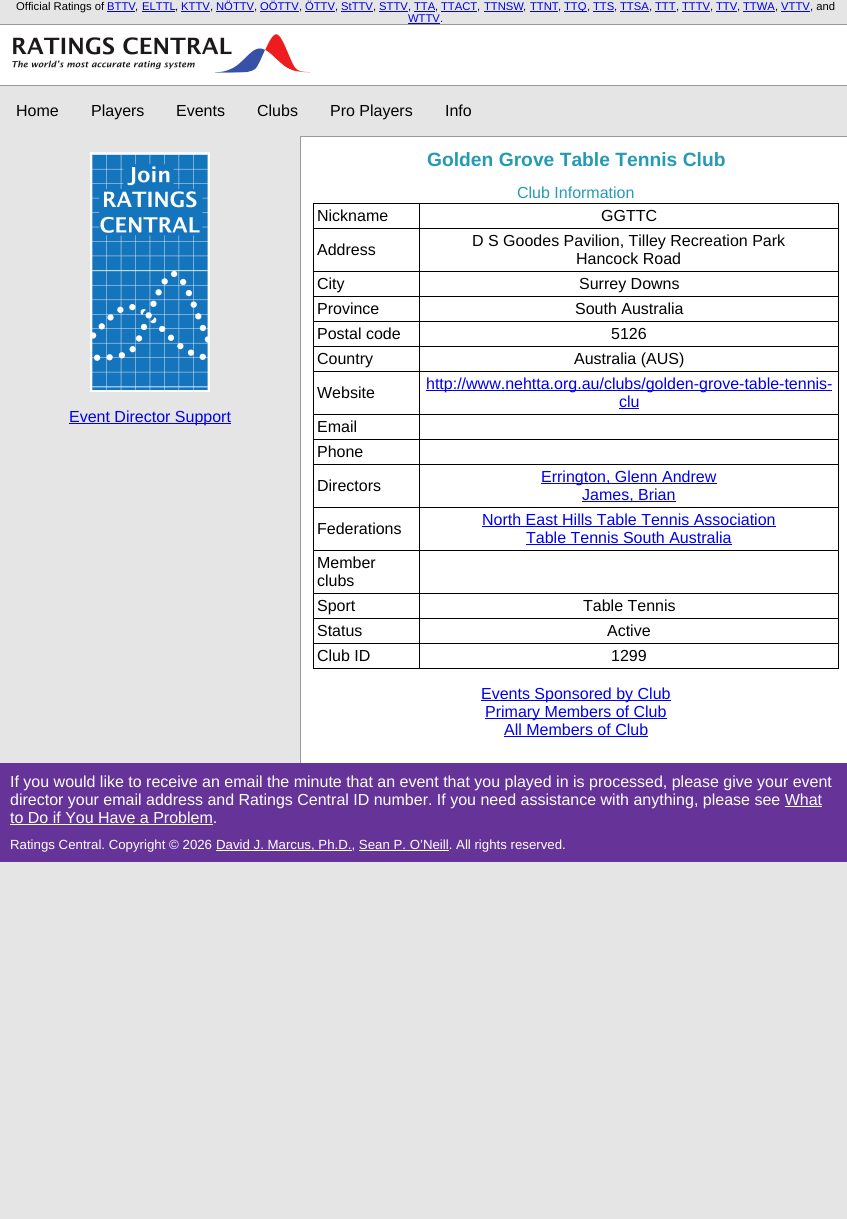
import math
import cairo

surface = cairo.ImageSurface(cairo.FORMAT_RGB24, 847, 1219)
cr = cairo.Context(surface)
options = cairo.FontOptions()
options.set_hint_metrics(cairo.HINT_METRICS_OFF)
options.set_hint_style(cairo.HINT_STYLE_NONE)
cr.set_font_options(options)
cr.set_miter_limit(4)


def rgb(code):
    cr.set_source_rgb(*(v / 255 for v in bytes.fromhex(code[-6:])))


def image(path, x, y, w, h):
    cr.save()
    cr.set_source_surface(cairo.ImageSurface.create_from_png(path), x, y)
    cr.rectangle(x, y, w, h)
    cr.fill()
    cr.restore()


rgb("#e5e5e5")
cr.paint()
for x, y, w, h, color in [
    (0, 24, 847, 1, "#999999"),
    (107, 11, 28, 1, "#0000ee"),
    (142, 11, 33, 1, "#0000ee"),
    (181, 11, 29, 1, "#0000ee"),
    (216, 11, 38, 1, "#0000ee"),
    (260, 11, 39, 1, "#0000ee"),
    (305, 11, 30, 1, "#0000ee"),
    (341, 11, 32, 1, "#0000ee"),
    (379, 11, 29, 1, "#0000ee"),
    (414, 11, 21, 1, "#0000ee"),
    (441, 11, 36, 1, "#0000ee"),
    (484, 11, 39, 1, "#0000ee"),
    (530, 11, 28, 1, "#0000ee"),
    (564, 11, 23, 1, "#0000ee"),
    (593, 11, 21, 1, "#0000ee"),
    (620, 11, 29, 1, "#0000ee"),
    (655, 11, 21, 1, "#0000ee"),
    (682, 11, 28, 1, "#0000ee"),
    (716, 11, 21, 1, "#0000ee"),
    (743, 11, 32, 1, "#0000ee"),
    (781, 11, 29, 1, "#0000ee"),
    (408, 23, 32, 1, "#0000ee"),
    (0, 25, 847, 60, "#ffffff"),
    (0, 85, 847, 1, "#999999"),
]:
    rgb(color)
    cr.rectangle(x, y, w, h)
    cr.fill()
image("img/1.png", 12, 34, 299, 39)
image("img/2.png", 90, 152, 120, 240)
for x, y, w, h, color in [
    (69, 423, 162, 1, "#0000ee"),
    (301, 137, 546, 626, "#ffffff"),
    (300, 136, 547, 1, "#999999"),
    (300, 136, 1, 627, "#999999"),
    (419, 203, 420, 1, "#000000"),
    (419, 228, 420, 1, "#000000"),
    (419, 271, 420, 1, "#000000"),
    (419, 296, 420, 1, "#000000"),
    (419, 321, 420, 1, "#000000"),
    (419, 346, 420, 1, "#000000"),
    (419, 371, 420, 1, "#000000"),
    (419, 414, 420, 1, "#000000"),
    (419, 439, 420, 1, "#000000"),
    (419, 464, 420, 1, "#000000"),
    (419, 507, 420, 1, "#000000"),
    (419, 550, 420, 1, "#000000"),
    (419, 593, 420, 1, "#000000"),
    (419, 618, 420, 1, "#000000"),
    (419, 643, 420, 1, "#000000"),
    (838, 643, 1, 26, "#000000"),
    (419, 668, 420, 1, "#000000"),
    (419, 643, 1, 26, "#000000"),
    (313, 643, 107, 1, "#000000"),
    (419, 618, 1, 26, "#000000"),
    (313, 618, 107, 1, "#000000"),
    (419, 593, 1, 26, "#000000"),
    (313, 593, 107, 1, "#000000"),
    (419, 550, 1, 44, "#000000"),
    (313, 550, 107, 1, "#000000"),
    (419, 507, 1, 44, "#000000"),
    (313, 507, 107, 1, "#000000"),
    (419, 464, 1, 44, "#000000"),
    (313, 464, 107, 1, "#000000"),
    (419, 439, 1, 26, "#000000"),
    (313, 439, 107, 1, "#000000"),
    (419, 414, 1, 26, "#000000"),
    (313, 414, 107, 1, "#000000"),
    (419, 371, 1, 44, "#000000"),
    (313, 371, 107, 1, "#000000"),
    (419, 346, 1, 26, "#000000"),
    (313, 346, 107, 1, "#000000"),
    (419, 321, 1, 26, "#000000"),
    (313, 321, 107, 1, "#000000"),
    (419, 296, 1, 26, "#000000"),
    (313, 296, 107, 1, "#000000"),
    (419, 271, 1, 26, "#000000"),
    (313, 271, 107, 1, "#000000"),
    (419, 228, 1, 44, "#000000"),
    (313, 228, 107, 1, "#000000"),
    (419, 203, 1, 26, "#000000"),
    (313, 203, 107, 1, "#000000"),
    (313, 668, 107, 1, "#000000"),
    (313, 643, 1, 26, "#000000"),
    (313, 618, 1, 26, "#000000"),
    (313, 593, 1, 26, "#000000"),
    (313, 550, 1, 44, "#000000"),
    (313, 507, 1, 44, "#000000"),
    (313, 464, 1, 44, "#000000"),
    (313, 439, 1, 26, "#000000"),
    (313, 414, 1, 26, "#000000"),
    (313, 371, 1, 44, "#000000"),
    (313, 346, 1, 26, "#000000"),
    (313, 321, 1, 26, "#000000"),
    (313, 296, 1, 26, "#000000"),
    (313, 271, 1, 26, "#000000"),
    (313, 228, 1, 44, "#000000"),
    (313, 203, 1, 26, "#000000"),
    (838, 618, 1, 26, "#000000"),
    (838, 593, 1, 26, "#000000"),
    (838, 550, 1, 44, "#000000"),
    (838, 507, 1, 44, "#000000"),
    (838, 464, 1, 44, "#000000"),
    (838, 439, 1, 26, "#000000"),
    (838, 414, 1, 26, "#000000"),
    (838, 371, 1, 44, "#000000"),
    (838, 346, 1, 26, "#000000"),
    (838, 321, 1, 26, "#000000"),
    (838, 296, 1, 26, "#000000"),
    (838, 271, 1, 26, "#000000"),
    (838, 228, 1, 44, "#000000"),
    (838, 203, 1, 26, "#000000"),
    (426, 390, 406, 1, "#0000ee"),
    (619, 408, 20, 1, "#0000ee"),
    (541, 483, 176, 1, "#0000ee"),
    (582, 501, 94, 1, "#0000ee"),
    (482, 526, 294, 1, "#0000ee"),
    (526, 544, 206, 1, "#0000ee"),
    (481, 700, 190, 1, "#0000ee"),
    (485, 718, 182, 1, "#0000ee"),
    (504, 736, 144, 1, "#0000ee"),
    (0, 763, 847, 99, "#663399"),
    (785, 806, 37, 1, "#ffffff"),
    (10, 824, 203, 1, "#ffffff"),
    (216, 850, 136, 1, "#ffffff"),
    (359, 850, 90, 1, "#ffffff"),
]:
    rgb(color)
    cr.rectangle(x, y, w, h)
    cr.fill()
cr.select_font_face("Liberation Sans")
cr.set_font_size(11.25)
rgb("#000000")
cr.move_to(16, 10)
cr.show_text("Official Ratings of")
rgb("#0000ee")
cr.move_to(107, 10)
cr.show_text("BTTV")
rgb("#000000")
cr.move_to(135, 10)
cr.show_text(",")
rgb("#0000ee")
cr.move_to(142, 10)
cr.show_text("ELTTL")
rgb("#000000")
cr.move_to(175, 10)
cr.show_text(",")
rgb("#0000ee")
cr.move_to(181, 10)
cr.show_text("KTTV")
rgb("#000000")
cr.move_to(210, 10)
cr.show_text(",")
rgb("#0000ee")
cr.move_to(216, 10)
cr.show_text("NÖTTV")
rgb("#000000")
cr.move_to(254, 10)
cr.show_text(",")
rgb("#0000ee")
cr.move_to(260, 10)
cr.show_text("OÖTTV")
rgb("#000000")
cr.move_to(299, 10)
cr.show_text(",")
rgb("#0000ee")
cr.move_to(305, 10)
cr.show_text("ÖTTV")
rgb("#000000")
cr.move_to(335, 10)
cr.show_text(",")
rgb("#0000ee")
cr.move_to(341, 10)
cr.show_text("StTTV")
rgb("#000000")
cr.move_to(373, 10)
cr.show_text(",")
rgb("#0000ee")
cr.move_to(379, 10)
cr.show_text("STTV")
rgb("#000000")
cr.move_to(408, 10)
cr.show_text(",")
rgb("#0000ee")
cr.move_to(414, 10)
cr.show_text("TTA")
rgb("#000000")
cr.move_to(435, 10)
cr.show_text(",")
rgb("#0000ee")
cr.move_to(441, 10)
cr.show_text("TTACT")
rgb("#000000")
cr.move_to(477, 10)
cr.show_text(",")
rgb("#0000ee")
cr.move_to(484, 10)
cr.show_text("TTNSW")
rgb("#000000")
cr.move_to(523, 10)
cr.show_text(",")
rgb("#0000ee")
cr.move_to(530, 10)
cr.show_text("TTNT")
rgb("#000000")
cr.move_to(558, 10)
cr.show_text(",")
rgb("#0000ee")
cr.move_to(564, 10)
cr.show_text("TTQ")
rgb("#000000")
cr.move_to(587, 10)
cr.show_text(",")
rgb("#0000ee")
cr.move_to(593, 10)
cr.show_text("TTS")
rgb("#000000")
cr.move_to(614, 10)
cr.show_text(",")
rgb("#0000ee")
cr.move_to(620, 10)
cr.show_text("TTSA")
rgb("#000000")
cr.move_to(649, 10)
cr.show_text(",")
rgb("#0000ee")
cr.move_to(655, 10)
cr.show_text("TTT")
rgb("#000000")
cr.move_to(676, 10)
cr.show_text(",")
rgb("#0000ee")
cr.move_to(682, 10)
cr.show_text("TTTV")
rgb("#000000")
cr.move_to(710, 10)
cr.show_text(",")
rgb("#0000ee")
cr.move_to(716, 10)
cr.show_text("TTV")
rgb("#000000")
cr.move_to(737, 10)
cr.show_text(",")
rgb("#0000ee")
cr.move_to(743, 10)
cr.show_text("TTWA")
rgb("#000000")
cr.move_to(775, 10)
cr.show_text(",")
rgb("#0000ee")
cr.move_to(781, 10)
cr.show_text("VTTV")
rgb("#000000")
cr.move_to(810, 10)
cr.show_text(", and")
rgb("#0000ee")
cr.move_to(408, 22)
cr.show_text("WTTV")
rgb("#000000")
cr.move_to(440, 22)
cr.show_text(".")
cr.set_font_size(16)
for x, y, s in [
    (16, 116, "Home"),
    (91, 116, "Players"),
    (176, 116, "Events"),
    (257, 116, "Clubs"),
    (330, 116, "Pro Players"),
    (445, 116, "Info"),
]:
    cr.move_to(x, y)
    cr.show_text(s)
rgb("#0000ee")
cr.move_to(69, 422)
cr.show_text("Event Director Support")
cr.select_font_face("Liberation Sans", cairo.FONT_SLANT_NORMAL, cairo.FONT_WEIGHT_BOLD)
cr.set_font_size(19.25)
rgb("#249bb5")
cr.move_to(427, 166)
cr.show_text("Golden Grove Table Tennis Club")
cr.select_font_face("Liberation Sans")
cr.set_font_size(16)
cr.move_to(517, 198)
cr.show_text("Club Information")
rgb("#000000")
for x, y, s in [
    (317, 221, "Nickname"),
    (601, 221, "GGTTC"),
    (317, 255, "Address"),
    (472, 246, "D S Goodes Pavilion, Tilley Recreation Park"),
    (576, 264, "Hancock Road"),
    (317, 289, "City"),
    (579, 289, "Surrey Downs"),
    (317, 314, "Province"),
    (575, 314, "South Australia"),
    (317, 339, "Postal code"),
    (611, 339, "5126"),
    (317, 364, "Country"),
    (574, 364, "Australia (AUS)"),
    (317, 398, "Website"),
]:
    cr.move_to(x, y)
    cr.show_text(s)
rgb("#0000ee")
cr.move_to(426, 389)
cr.show_text("http://www.nehtta.org.au/clubs/golden-grove-table-tennis-")
cr.move_to(619, 407)
cr.show_text("clu")
rgb("#000000")
for x, y, s in [
    (317, 432, "Email"),
    (317, 457, "Phone"),
    (317, 491, "Directors"),
]:
    cr.move_to(x, y)
    cr.show_text(s)
rgb("#0000ee")
cr.move_to(541, 482)
cr.show_text("Errington, Glenn Andrew")
cr.move_to(582, 500)
cr.show_text("James, Brian")
rgb("#000000")
cr.move_to(317, 534)
cr.show_text("Federations")
rgb("#0000ee")
cr.move_to(482, 525)
cr.show_text("North East Hills Table Tennis Association")
cr.move_to(526, 543)
cr.show_text("Table Tennis South Australia")
rgb("#000000")
for x, y, s in [
    (317, 568, "Member"),
    (317, 586, "clubs"),
    (317, 611, "Sport"),
    (583, 611, "Table Tennis"),
    (317, 636, "Status"),
    (607, 636, "Active"),
    (317, 661, "Club ID"),
    (611, 661, "1299"),
]:
    cr.move_to(x, y)
    cr.show_text(s)
rgb("#0000ee")
for x, y, s in [
    (481, 699, "Events Sponsored by Club"),
    (485, 717, "Primary Members of Club"),
    (504, 735, "All Members of Club"),
]:
    cr.move_to(x, y)
    cr.show_text(s)
rgb("#ffffff")
for x, y, s in [
    (10, 787, "If you would like to receive an email the minute that an event that you played in is processed, please give your event"),
    (10, 805, "director your email address and Ratings Central ID number. If you need assistance with anything, please see What"),
    (10, 823, "to Do if You Have a Problem."),
]:
    cr.move_to(x, y)
    cr.show_text(s)
cr.set_font_size(13.25)
cr.move_to(10, 849)
cr.show_text("Ratings Central. Copyright © 2026")
cr.move_to(216, 849)
cr.show_text("David J. Marcus, Ph.D., Sean P. O’Neill. All rights reserved.")
surface.write_to_png("page.png")
